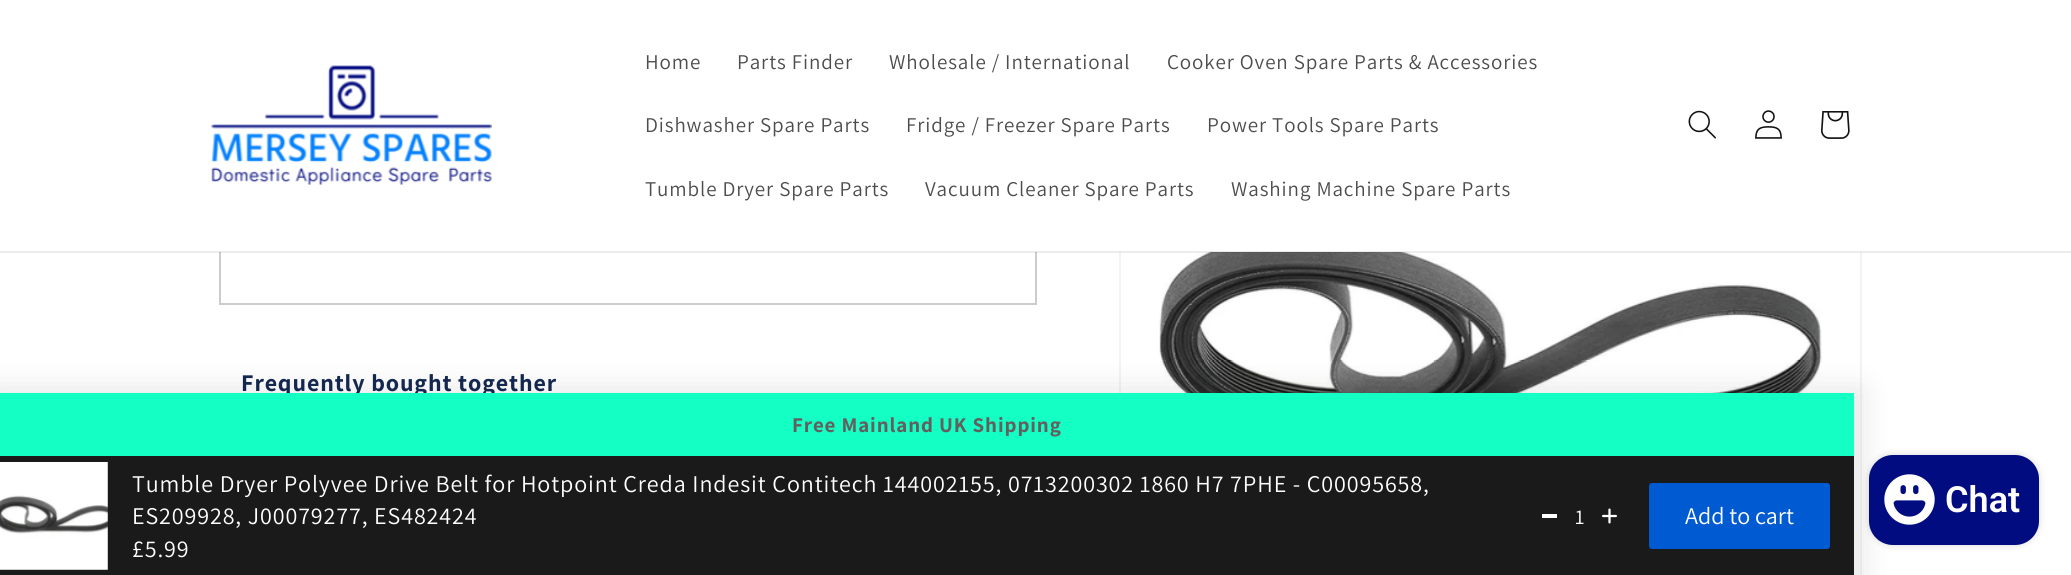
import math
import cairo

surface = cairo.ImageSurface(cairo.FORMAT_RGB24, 2071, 575)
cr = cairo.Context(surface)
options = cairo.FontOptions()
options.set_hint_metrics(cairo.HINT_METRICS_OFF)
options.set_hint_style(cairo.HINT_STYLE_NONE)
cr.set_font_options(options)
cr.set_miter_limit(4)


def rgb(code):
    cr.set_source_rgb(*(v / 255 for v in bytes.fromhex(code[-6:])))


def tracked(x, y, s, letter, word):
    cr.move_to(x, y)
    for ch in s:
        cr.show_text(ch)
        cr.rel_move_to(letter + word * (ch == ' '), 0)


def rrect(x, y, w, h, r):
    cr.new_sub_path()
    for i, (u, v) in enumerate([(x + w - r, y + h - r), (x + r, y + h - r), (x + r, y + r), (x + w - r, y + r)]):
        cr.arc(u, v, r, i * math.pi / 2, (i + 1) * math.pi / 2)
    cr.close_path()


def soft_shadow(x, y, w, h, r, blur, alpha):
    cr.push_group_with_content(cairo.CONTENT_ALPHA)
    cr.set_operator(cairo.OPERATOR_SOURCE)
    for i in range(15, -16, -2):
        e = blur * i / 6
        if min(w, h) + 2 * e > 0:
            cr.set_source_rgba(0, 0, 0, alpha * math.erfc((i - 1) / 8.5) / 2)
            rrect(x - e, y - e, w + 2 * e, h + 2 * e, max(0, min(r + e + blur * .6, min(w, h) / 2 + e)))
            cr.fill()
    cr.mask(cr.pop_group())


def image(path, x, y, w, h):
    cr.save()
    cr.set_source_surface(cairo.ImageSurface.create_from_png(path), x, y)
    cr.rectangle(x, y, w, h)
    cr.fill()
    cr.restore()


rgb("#ffffff")
cr.paint()
cr.rectangle(220, 64, 816, 240)
rgb("#cccccc")
cr.stroke()
cr.rectangle(1120, 46, 741, 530)
rgb("#f3f3f3")
cr.stroke()
rgb("#ffffff")
cr.rectangle(219, 45, 1643, 207)
cr.fill()
image("img/5.png", 1159, 252, 663, 141)
cr.set_source_rgba(0.071, 0.071, 0.071, 0.08)
cr.rectangle(0, 251, 2071, 2)
cr.fill()
image("img/1.png", 211, 65, 281, 120)
image("img/2.png", 1688, 110, 28, 29)
image("img/3.png", 1755, 110, 27, 29)
image("img/4.png", 1821, 111, 29, 28)
rgb("#000000")
soft_shadow(-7, 389, 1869, 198, 0, 15, 0.1)
rgb("#1a1a1a")
cr.rectangle(0, 456, 1854, 119)
cr.fill()
image("img/6.png", 0, 462, 108, 108)
rgb("#ffffff")
cr.rectangle(1542, 514, 15, 4)
cr.fill()
image("img/7.png", 1602, 508, 15, 16)
rgb("#005bd3")
rrect(1649, 483, 181, 66, 3)
cr.fill()
rgb("#000000")
soft_shadow(1869, 455, 170, 90, 24, 4, 0.15)
rgb("#010c80")
rrect(1869, 455, 170, 90, 24)
cr.fill()
image("img/8.png", 1884, 474, 51, 51)
cr.select_font_face("Assistant")
cr.set_font_size(21)
rgb("#4d4d4d")
for x, y, s in [
    (645, 69, "Home"),
    (737, 69, "Parts Finder"),
    (889, 69, "Wholesale / International"),
    (1167, 69, "Cooker Oven Spare Parts & Accessories"),
    (645, 132, "Dishwasher Spare Parts"),
    (906, 132, "Fridge / Freezer Spare Parts"),
    (1207, 132, "Power Tools Spare Parts"),
    (645, 196, "Tumble Dryer Spare Parts"),
    (925, 196, "Vacuum Cleaner Spare Parts"),
    (1231, 196, "Washing Machine Spare Parts"),
]:
    tracked(x, y, s, 0.9, 0)
cr.select_font_face("Assistant", cairo.FONT_SLANT_NORMAL, cairo.FONT_WEIGHT_BOLD)
cr.set_font_size(24)
rgb("#14274e")
tracked(241, 391, "Frequently bought together", 0.9, 0)
rgb("#13ffc4")
cr.rectangle(0, 393, 1854, 63)
cr.fill()
cr.set_font_size(21)
rgb("#635f5f")
tracked(792, 432, "Free Mainland UK Shipping", 0.9, 0)
cr.select_font_face("Assistant")
cr.set_font_size(24)
rgb("#ffffff")
for x, y, s in [
    (132, 492, "Tumble Dryer Polyvee Drive Belt for Hotpoint Creda Indesit Contitech 144002155, 0713200302 1860 H7 7PHE - C00095658,"),
    (132, 524, "ES209928, J00079277, ES482424"),
    (132, 557, "£5.99"),
]:
    tracked(x, y, s, 0.9, 0)
cr.set_font_size(21)
tracked(1575, 524, "1", 0.9, 0)
cr.set_font_size(24)
cr.move_to(1685, 524)
cr.show_text("Add to cart")
cr.select_font_face("Roboto SemiBold")
cr.set_font_size(36)
cr.move_to(1945, 512)
cr.show_text("Chat")
surface.write_to_png("page.png")
